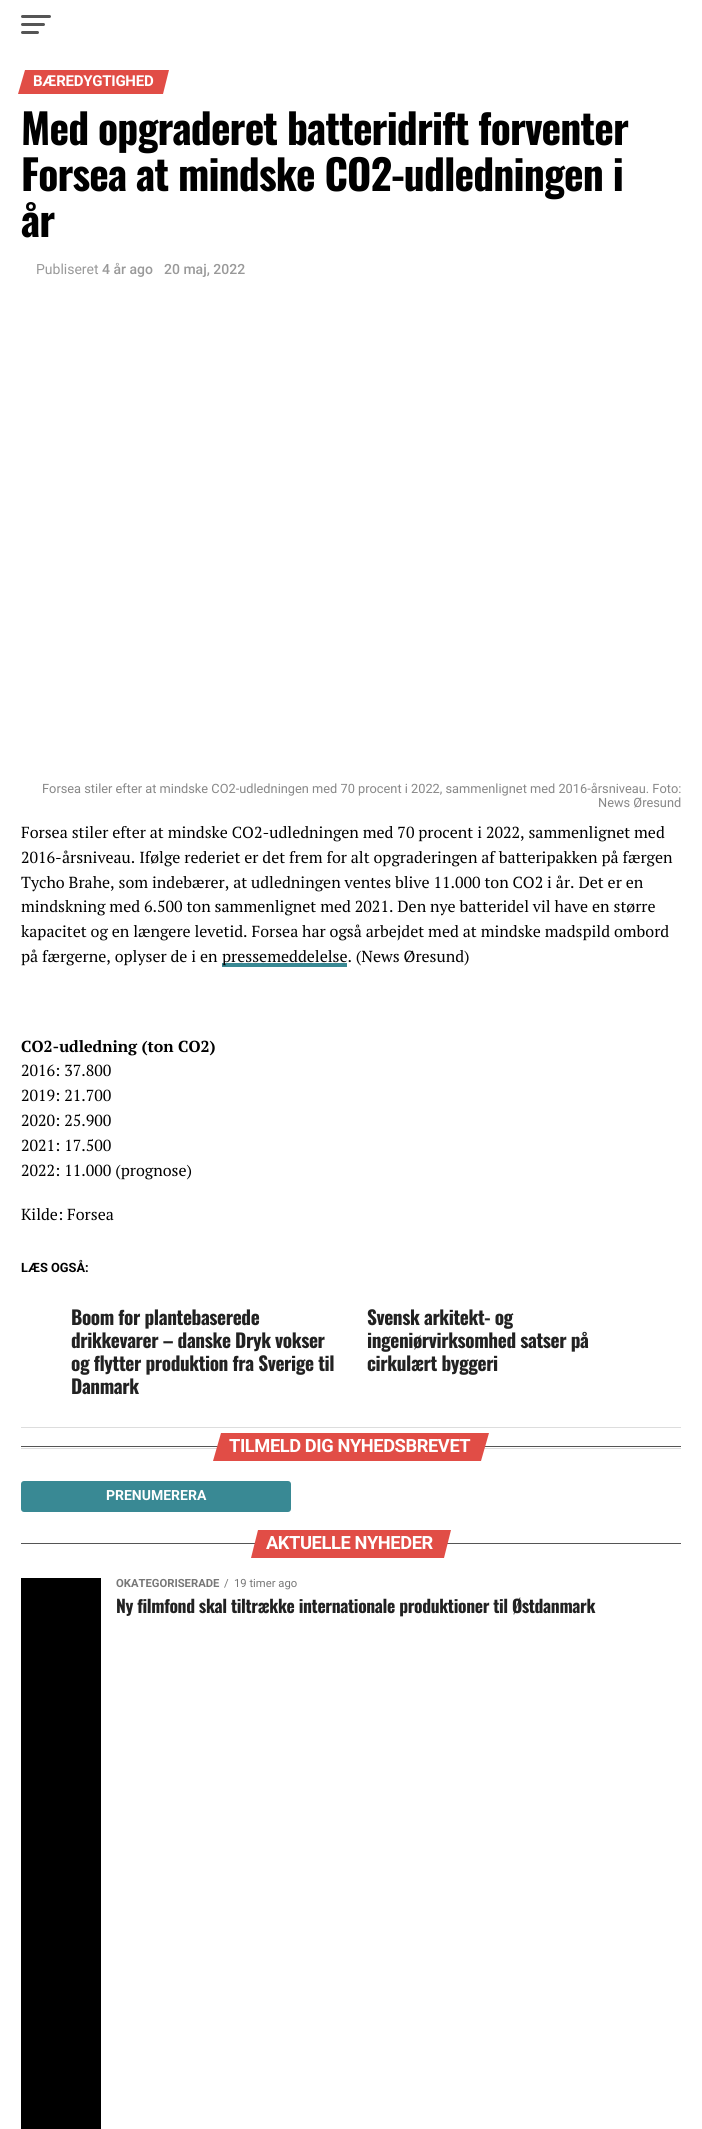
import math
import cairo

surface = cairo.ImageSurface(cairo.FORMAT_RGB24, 702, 2129)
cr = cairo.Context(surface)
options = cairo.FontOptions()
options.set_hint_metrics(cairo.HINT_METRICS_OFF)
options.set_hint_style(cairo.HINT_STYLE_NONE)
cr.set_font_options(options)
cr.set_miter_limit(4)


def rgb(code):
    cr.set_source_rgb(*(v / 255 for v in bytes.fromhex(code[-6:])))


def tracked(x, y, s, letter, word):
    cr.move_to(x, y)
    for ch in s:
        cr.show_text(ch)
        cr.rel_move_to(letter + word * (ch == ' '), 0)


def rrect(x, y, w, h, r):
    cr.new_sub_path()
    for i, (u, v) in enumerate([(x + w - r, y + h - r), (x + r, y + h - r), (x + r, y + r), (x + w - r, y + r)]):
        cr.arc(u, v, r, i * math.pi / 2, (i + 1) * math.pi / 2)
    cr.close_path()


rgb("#ffffff")
cr.paint()
rgb("#555555")
rrect(21, 15, 30, 3, 1.5)
cr.fill()
rrect(21, 23, 24, 3, 1.5)
cr.fill()
rrect(21, 31, 18, 3, 1.5)
cr.fill()
rgb("#e14d46")
cr.new_path()
cr.move_to(25, 70)
cr.line_to(169, 70)
cr.line_to(163, 94)
cr.line_to(18, 94)
cr.close_path()
cr.fill()
for x, y, w, h, color in [
    (222, 963, 125, 4, "#398994"),
    (21, 1427, 660, 1, "#dddddd"),
    (21, 1448, 660, 1, "#dddddd"),
    (21, 1446, 660, 1, "#555555"),
]:
    rgb(color)
    cr.rectangle(x, y, w, h)
    cr.fill()
rgb("#e14d46")
cr.new_path()
cr.move_to(221, 1433)
cr.line_to(489, 1433)
cr.line_to(481, 1461)
cr.line_to(213, 1461)
cr.close_path()
cr.fill()
rgb("#398994")
rrect(21, 1481, 270, 31, 3)
cr.fill()
rgb("#555555")
cr.rectangle(21, 1543, 660, 1)
cr.fill()
rgb("#e14d46")
cr.new_path()
cr.move_to(258, 1530)
cr.line_to(451, 1530)
cr.line_to(444, 1558)
cr.line_to(251, 1558)
cr.close_path()
cr.fill()
rgb("#000000")
cr.rectangle(21, 1578, 80, 551)
cr.fill()
cr.select_font_face("Roboto", cairo.FONT_SLANT_NORMAL, cairo.FONT_WEIGHT_BOLD)
cr.set_font_size(15)
rgb("#ffffff")
tracked(33, 86, "BÆREDYGTIGHED", -0.25, 0)
cr.select_font_face("Oswald", cairo.FONT_SLANT_NORMAL, cairo.FONT_WEIGHT_BOLD)
cr.set_font_size(41.6)
rgb("#000000")
for x, y, s in [
    (21, 145, "Med opgraderet batteridrift forventer"),
    (21, 191, "Forsea at mindske CO2-udledningen i"),
    (21, 237, "år"),
]:
    tracked(x, y, s, -0.85, 0)
cr.select_font_face("Roboto")
cr.set_font_size(14)
rgb("#999999")
cr.move_to(36, 274)
cr.show_text("Publiseret")
cr.select_font_face("Roboto Medium")
cr.move_to(102, 274)
cr.show_text("4 år ago")
cr.move_to(164, 274)
cr.show_text("20 maj, 2022")
cr.select_font_face("Roboto")
cr.set_font_size(12.8)
rgb("#888888")
cr.move_to(42, 793)
cr.show_text("Forsea stiler efter at mindske CO2-udledningen med 70 procent i 2022, sammenlignet med 2016-årsniveau. Foto:")
cr.move_to(598, 807)
cr.show_text("News Øresund")
cr.select_font_face("PT Serif")
cr.set_font_size(16)
rgb("#000000")
for x, y, s in [
    (21, 838, "Forsea stiler efter at mindske CO2-udledningen med 70 procent i 2022, sammenlignet med"),
    (21, 863, "2016-årsniveau. Ifølge rederiet er det frem for alt opgraderingen af batteripakken på færgen"),
    (21, 888, "Tycho Brahe, som indebærer, at udledningen ventes blive 11.000 ton CO2 i år. Det er en"),
    (21, 912, "mindskning med 6.500 ton sammenlignet med 2021. Den nye batteridel vil have en større"),
    (21, 937, "kapacitet og en længere levetid. Forsea har også arbejdet med at mindske madspild ombord"),
    (21, 962, "på færgerne, oplyser de i en"),
    (222, 962, "pressemeddelelse. (News Øresund)"),
]:
    cr.move_to(x, y)
    cr.show_text(s)
cr.select_font_face("PT Serif", cairo.FONT_SLANT_NORMAL, cairo.FONT_WEIGHT_BOLD)
cr.move_to(21, 1052)
cr.show_text("CO2-udledning (ton CO2)")
cr.select_font_face("PT Serif")
for x, y, s in [
    (21, 1076, "2016: 37.800"),
    (21, 1101, "2019: 21.700"),
    (21, 1126, "2020: 25.900"),
    (21, 1151, "2021: 17.500"),
    (21, 1176, "2022: 11.000 (prognose)"),
    (21, 1220, "Kilde: Forsea"),
]:
    cr.move_to(x, y)
    cr.show_text(s)
cr.select_font_face("Roboto", cairo.FONT_SLANT_NORMAL, cairo.FONT_WEIGHT_BOLD)
cr.set_font_size(12.8)
cr.move_to(21, 1272)
cr.show_text("LÆS OGSÅ:")
cr.select_font_face("Oswald", cairo.FONT_SLANT_NORMAL, cairo.FONT_WEIGHT_BOLD)
cr.set_font_size(19.25)
rgb("#222222")
for x, y, s in [
    (71, 1325, "Boom for plantebaserede"),
    (71, 1348, "drikkevarer – danske Dryk vokser"),
    (71, 1371, "og flytter produktion fra Sverige til"),
    (71, 1394, "Danmark"),
    (367, 1325, "Svensk arkitekt- og"),
    (367, 1348, "ingeniørvirksomhed satser på"),
    (367, 1371, "cirkulært byggeri"),
]:
    tracked(x, y, s, -0.4, 0)
cr.select_font_face("Roboto", cairo.FONT_SLANT_NORMAL, cairo.FONT_WEIGHT_BOLD)
cr.set_font_size(18.25)
rgb("#ffffff")
tracked(229, 1452, "TILMELD DIG NYHEDSBREVET", -0.4, 0)
cr.set_font_size(14)
cr.move_to(106, 1500)
cr.show_text("PRENUMERERA")
cr.set_font_size(18.25)
tracked(266, 1549, "AKTUELLE NYHEDER", -0.4, 0)
cr.set_font_size(11.25)
rgb("#777777")
cr.move_to(116, 1587)
cr.show_text("OKATEGORISERADE")
cr.select_font_face("Roboto")
cr.move_to(224, 1587)
cr.show_text("/")
cr.move_to(234, 1587)
cr.show_text("19 timer ago")
cr.select_font_face("Oswald", cairo.FONT_SLANT_NORMAL, cairo.FONT_WEIGHT_BOLD)
cr.set_font_size(17.6)
rgb("#222222")
tracked(116, 1613, "Ny filmfond skal tiltrække internationale produktioner til Østdanmark", -0.35, 0)
surface.write_to_png("page.png")
